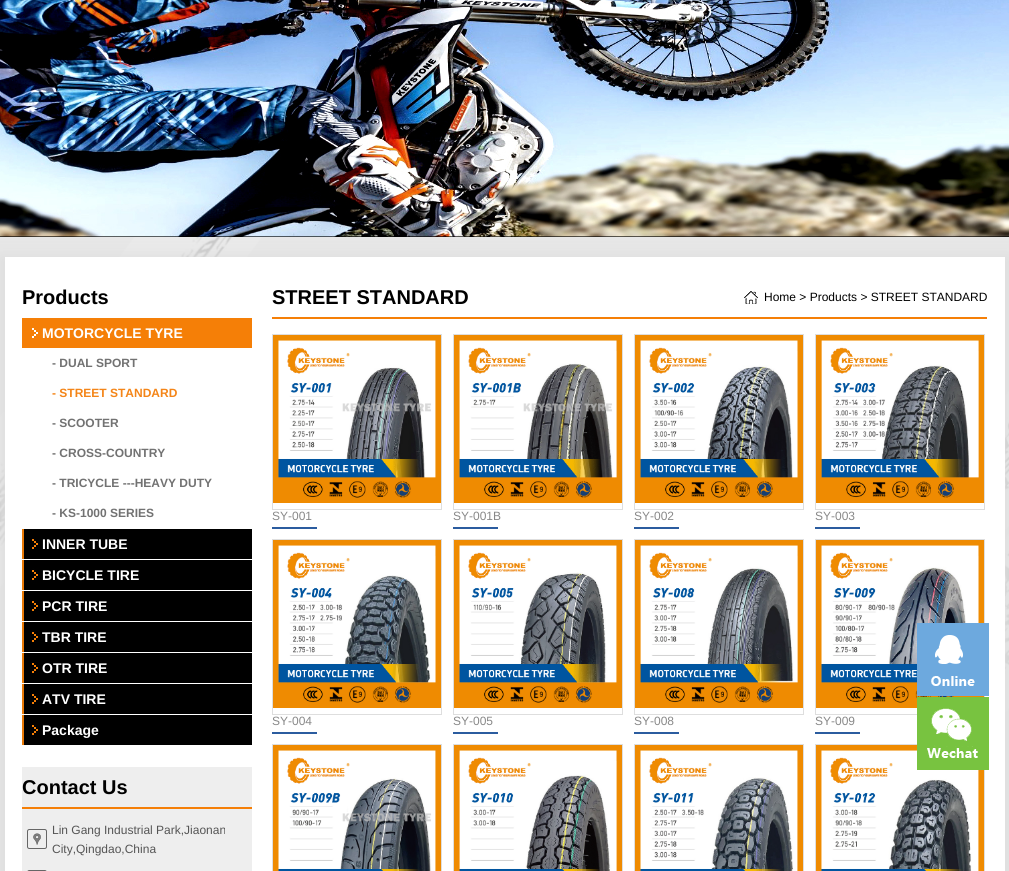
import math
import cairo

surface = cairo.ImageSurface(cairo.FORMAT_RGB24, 1009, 871)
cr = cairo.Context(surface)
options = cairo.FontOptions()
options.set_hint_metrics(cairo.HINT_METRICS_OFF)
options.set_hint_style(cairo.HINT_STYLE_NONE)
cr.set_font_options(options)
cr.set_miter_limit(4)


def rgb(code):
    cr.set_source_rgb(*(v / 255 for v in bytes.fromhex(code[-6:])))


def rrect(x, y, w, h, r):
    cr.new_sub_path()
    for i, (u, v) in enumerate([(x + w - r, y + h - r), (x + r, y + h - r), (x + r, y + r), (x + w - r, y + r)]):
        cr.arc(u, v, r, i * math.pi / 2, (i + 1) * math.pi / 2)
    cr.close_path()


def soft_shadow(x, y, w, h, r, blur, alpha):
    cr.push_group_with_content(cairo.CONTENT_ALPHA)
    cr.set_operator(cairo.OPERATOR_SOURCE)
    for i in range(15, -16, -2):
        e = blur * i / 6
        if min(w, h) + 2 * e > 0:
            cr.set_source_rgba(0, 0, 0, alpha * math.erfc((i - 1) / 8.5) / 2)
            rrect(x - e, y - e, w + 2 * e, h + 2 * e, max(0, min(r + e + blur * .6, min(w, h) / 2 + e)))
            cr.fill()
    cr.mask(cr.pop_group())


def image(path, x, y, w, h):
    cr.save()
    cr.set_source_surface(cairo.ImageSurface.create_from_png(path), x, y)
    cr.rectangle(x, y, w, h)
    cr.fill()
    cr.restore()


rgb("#e7e7e7")
cr.paint()
image("img/1.png", 0, 237, 1009, 476)
rgb("#dddddd")
soft_shadow(0, 257, 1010, 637, 0, 7.5, 1)
image("img/2.png", 0, 0, 1009, 237)
rgb("#ffffff")
cr.rectangle(5, 257, 1000, 614)
cr.fill()
rgb("#f57f07")
cr.rectangle(22, 318, 230, 30)
cr.fill()
image("img/3.png", 32, 328, 6, 10)
rgb("#000000")
cr.rectangle(38, 529, 214, 30)
cr.fill()
image("img/4.png", 22, 529, 16, 30)
cr.rectangle(38, 560, 214, 30)
cr.fill()
image("img/4.png", 22, 560, 16, 30)
cr.rectangle(38, 591, 214, 30)
cr.fill()
image("img/4.png", 22, 591, 16, 30)
cr.rectangle(38, 622, 214, 30)
cr.fill()
image("img/4.png", 22, 622, 16, 30)
cr.rectangle(38, 653, 214, 30)
cr.fill()
image("img/4.png", 22, 653, 16, 30)
cr.rectangle(38, 684, 214, 30)
cr.fill()
image("img/4.png", 22, 684, 16, 30)
cr.rectangle(38, 715, 214, 30)
cr.fill()
image("img/4.png", 22, 715, 16, 30)
rgb("#eeeeee")
cr.rectangle(22, 767, 230, 104)
cr.fill()
rgb("#f57f07")
cr.rectangle(22, 807, 230, 2)
cr.fill()
image("img/5.png", 27, 829, 20, 20)
image("img/6.png", 27, 870, 20, 1)
cr.rectangle(272, 317, 715, 2)
cr.fill()
image("img/7.png", 744, 291, 14, 13)
cr.rectangle(272.5, 334.5, 169, 175)
rgb("#dedede")
cr.set_line_width(1)
cr.stroke()
image("img/8.png", 273, 335, 168, 168)
rgb("#2b5c9f")
cr.rectangle(272, 527, 45, 2)
cr.fill()
cr.rectangle(453.5, 334.5, 169, 175)
rgb("#dedede")
cr.stroke()
image("img/9.png", 454, 335, 168, 168)
rgb("#2b5c9f")
cr.rectangle(453, 527, 45, 2)
cr.fill()
cr.rectangle(634.5, 334.5, 169, 175)
rgb("#dedede")
cr.stroke()
image("img/10.png", 635, 335, 168, 168)
rgb("#2b5c9f")
cr.rectangle(634, 527, 45, 2)
cr.fill()
cr.rectangle(815.5, 334.5, 169, 175)
rgb("#dedede")
cr.stroke()
image("img/11.png", 816, 335, 168, 168)
rgb("#2b5c9f")
cr.rectangle(815, 527, 45, 2)
cr.fill()
cr.rectangle(272.5, 539.5, 169, 175)
rgb("#dedede")
cr.stroke()
image("img/12.png", 273, 540, 168, 168)
rgb("#2b5c9f")
cr.rectangle(272, 732, 45, 2)
cr.fill()
cr.rectangle(453.5, 539.5, 169, 175)
rgb("#dedede")
cr.stroke()
image("img/13.png", 454, 540, 168, 168)
rgb("#2b5c9f")
cr.rectangle(453, 732, 45, 2)
cr.fill()
cr.rectangle(634.5, 539.5, 169, 175)
rgb("#dedede")
cr.stroke()
image("img/14.png", 635, 540, 168, 168)
rgb("#2b5c9f")
cr.rectangle(634, 732, 45, 2)
cr.fill()
cr.rectangle(815.5, 539.5, 169, 175)
rgb("#dedede")
cr.stroke()
image("img/15.png", 816, 540, 168, 168)
rgb("#2b5c9f")
cr.rectangle(815, 732, 45, 2)
cr.fill()
cr.rectangle(272.5, 744.5, 169, 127)
rgb("#dedede")
cr.stroke()
image("img/16.png", 273, 745, 168, 126)
cr.rectangle(453.5, 744.5, 169, 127)
cr.stroke()
image("img/17.png", 454, 745, 168, 126)
cr.rectangle(634.5, 744.5, 169, 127)
cr.stroke()
image("img/18.png", 635, 745, 168, 126)
cr.rectangle(815.5, 744.5, 169, 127)
cr.stroke()
image("img/19.png", 816, 745, 168, 126)
rgb("#6da9de")
cr.rectangle(917, 623, 72, 73)
cr.fill()
image("img/20.png", 931, 635, 44, 51)
rgb("#78c340")
cr.rectangle(917, 697, 72, 73)
cr.fill()
image("img/21.png", 927, 708, 51, 50)
cr.select_font_face("Liberation Sans", cairo.FONT_SLANT_NORMAL, cairo.FONT_WEIGHT_BOLD)
cr.set_font_size(20)
rgb("#000000")
cr.move_to(22, 304)
cr.show_text("Products")
cr.set_font_size(14)
rgb("#ffffff")
cr.move_to(42, 338)
cr.show_text("MOTORCYCLE TYRE")
cr.set_font_size(12)
rgb("#727272")
cr.move_to(52, 367)
cr.show_text("- DUAL SPORT")
rgb("#f48518")
cr.move_to(52, 397)
cr.show_text("- STREET STANDARD")
rgb("#727272")
for x, y, s in [
    (52, 427, "- SCOOTER"),
    (52, 457, "- CROSS-COUNTRY"),
    (52, 487, "- TRICYCLE ---HEAVY DUTY"),
    (52, 517, "- KS-1000 SERIES"),
]:
    cr.move_to(x, y)
    cr.show_text(s)
cr.set_font_size(14)
rgb("#ffffff")
for x, y, s in [
    (42, 549, "INNER TUBE"),
    (42, 580, "BICYCLE TIRE"),
    (42, 611, "PCR TIRE"),
    (42, 642, "TBR TIRE"),
    (42, 673, "OTR TIRE"),
    (42, 704, "ATV TIRE"),
    (42, 735, "Package"),
]:
    cr.move_to(x, y)
    cr.show_text(s)
cr.set_font_size(20)
rgb("#000000")
cr.move_to(22, 794)
cr.show_text("Contact Us")
cr.select_font_face("Liberation Sans")
cr.set_font_size(12)
rgb("#555555")
cr.move_to(52, 834)
cr.show_text("Lin Gang Industrial Park,Jiaonan")
cr.move_to(52, 853)
cr.show_text("City,Qingdao,China")
cr.select_font_face("Liberation Sans", cairo.FONT_SLANT_NORMAL, cairo.FONT_WEIGHT_BOLD)
cr.set_font_size(20)
rgb("#000000")
cr.move_to(272, 304)
cr.show_text("STREET STANDARD")
cr.select_font_face("Liberation Sans")
cr.set_font_size(12)
cr.move_to(764, 301)
cr.show_text("Home > Products > STREET STANDARD")
rgb("#888888")
for x, y, s in [
    (272, 520, "SY-001"),
    (453, 520, "SY-001B"),
    (634, 520, "SY-002"),
    (815, 520, "SY-003"),
    (272, 725, "SY-004"),
    (453, 725, "SY-005"),
    (634, 725, "SY-008"),
    (815, 725, "SY-009"),
]:
    cr.move_to(x, y)
    cr.show_text(s)
surface.write_to_png("page.png")
